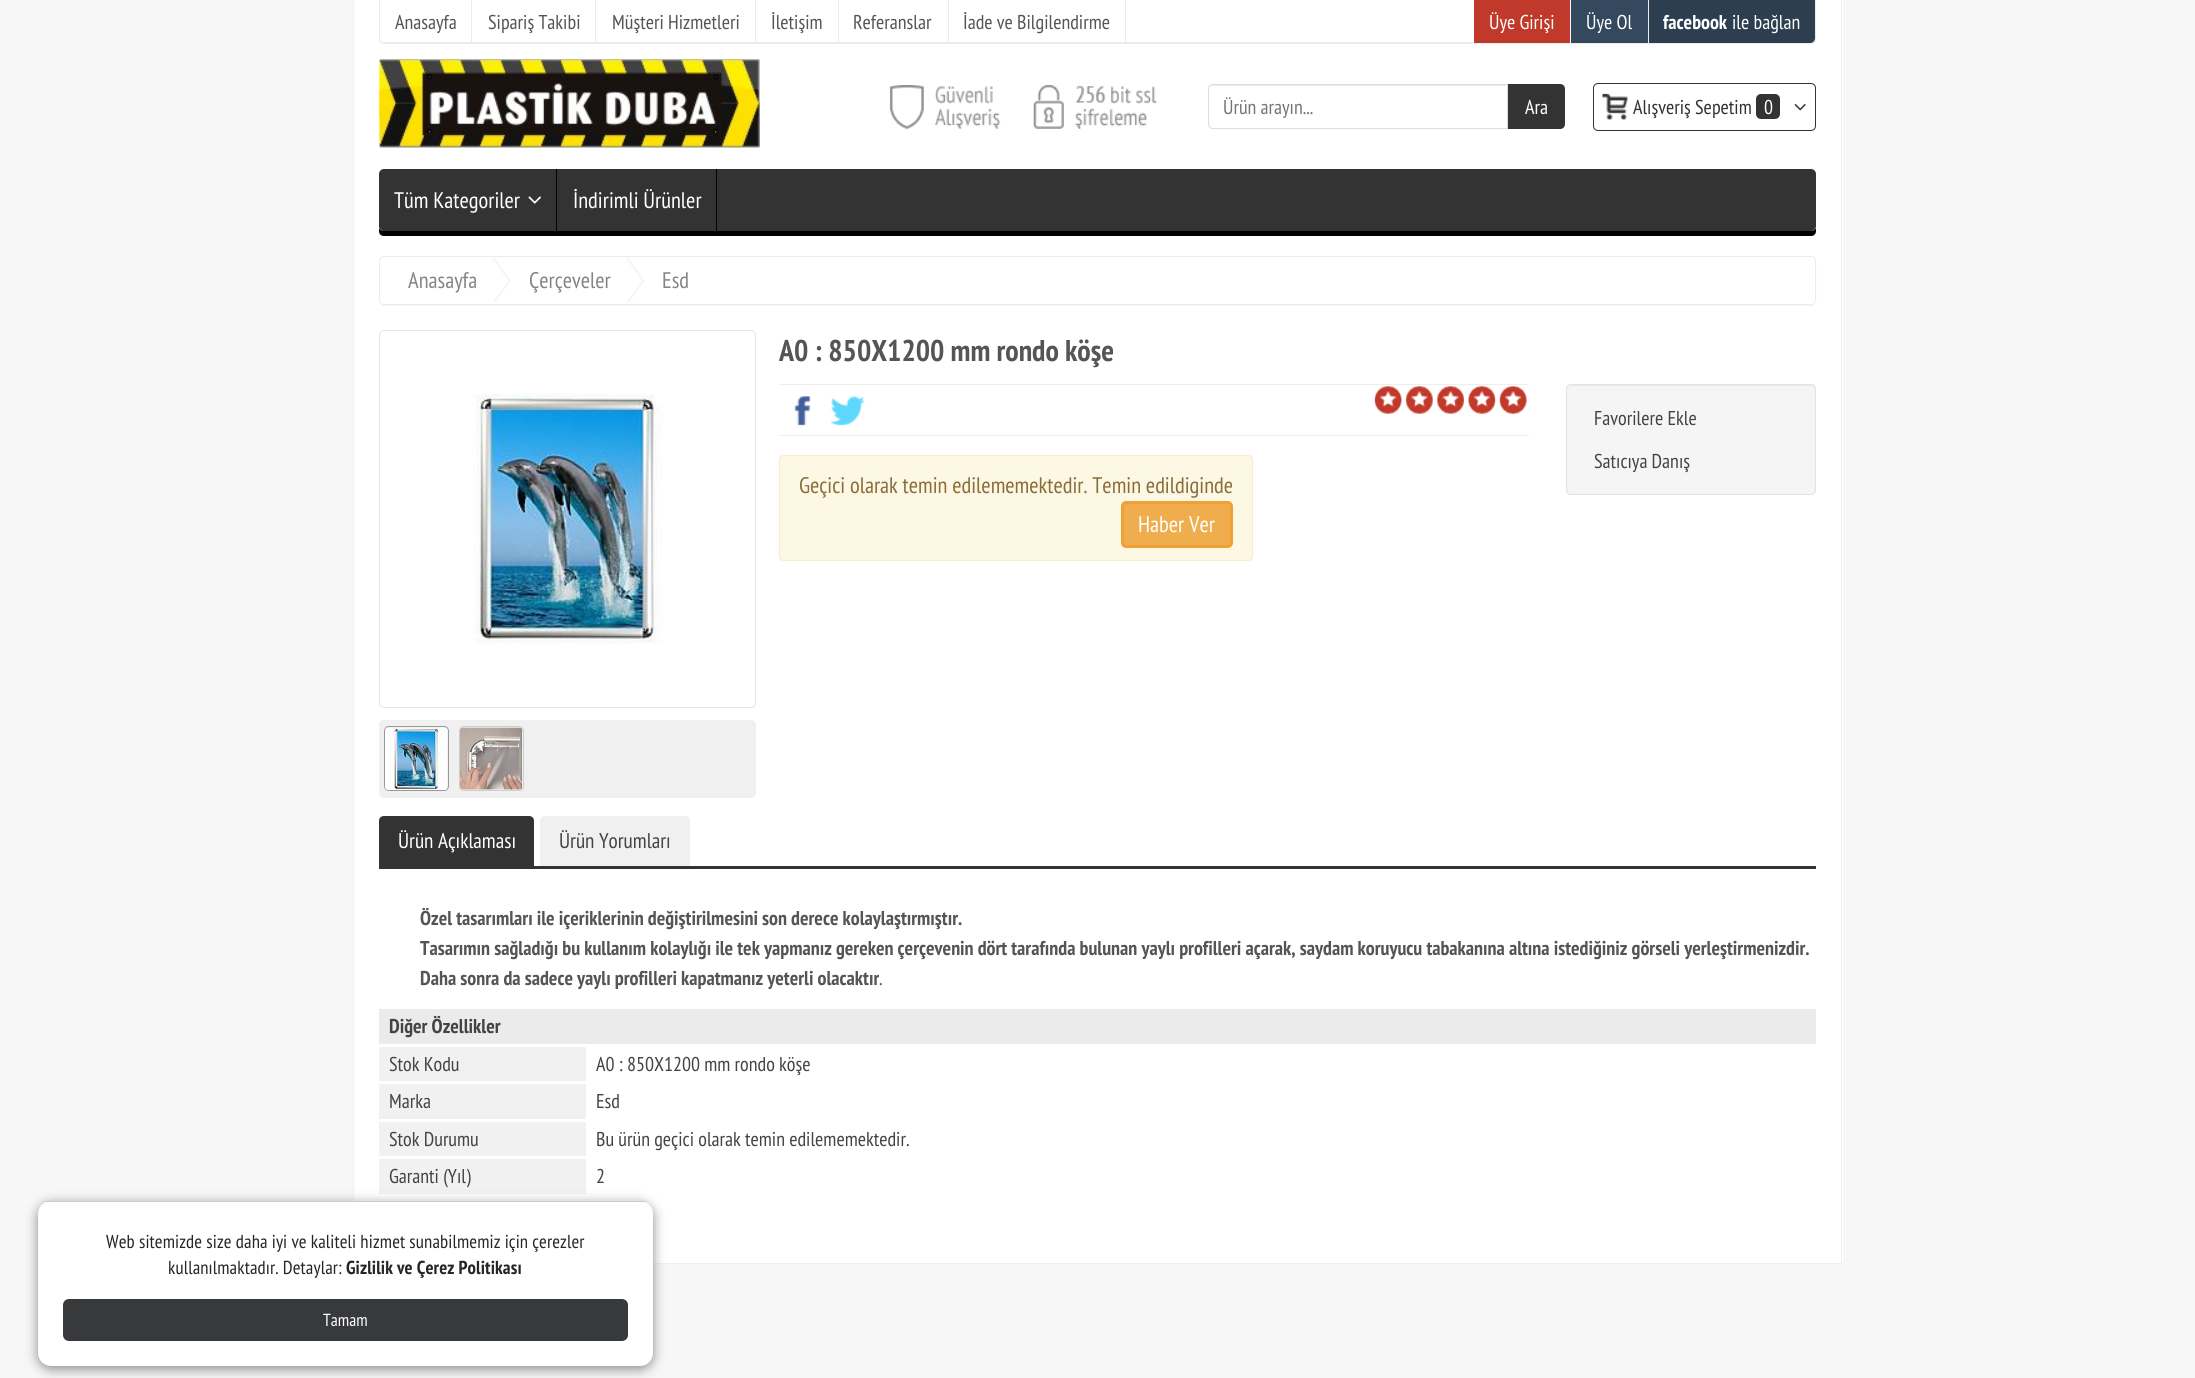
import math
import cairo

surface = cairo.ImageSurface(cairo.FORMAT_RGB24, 2195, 1378)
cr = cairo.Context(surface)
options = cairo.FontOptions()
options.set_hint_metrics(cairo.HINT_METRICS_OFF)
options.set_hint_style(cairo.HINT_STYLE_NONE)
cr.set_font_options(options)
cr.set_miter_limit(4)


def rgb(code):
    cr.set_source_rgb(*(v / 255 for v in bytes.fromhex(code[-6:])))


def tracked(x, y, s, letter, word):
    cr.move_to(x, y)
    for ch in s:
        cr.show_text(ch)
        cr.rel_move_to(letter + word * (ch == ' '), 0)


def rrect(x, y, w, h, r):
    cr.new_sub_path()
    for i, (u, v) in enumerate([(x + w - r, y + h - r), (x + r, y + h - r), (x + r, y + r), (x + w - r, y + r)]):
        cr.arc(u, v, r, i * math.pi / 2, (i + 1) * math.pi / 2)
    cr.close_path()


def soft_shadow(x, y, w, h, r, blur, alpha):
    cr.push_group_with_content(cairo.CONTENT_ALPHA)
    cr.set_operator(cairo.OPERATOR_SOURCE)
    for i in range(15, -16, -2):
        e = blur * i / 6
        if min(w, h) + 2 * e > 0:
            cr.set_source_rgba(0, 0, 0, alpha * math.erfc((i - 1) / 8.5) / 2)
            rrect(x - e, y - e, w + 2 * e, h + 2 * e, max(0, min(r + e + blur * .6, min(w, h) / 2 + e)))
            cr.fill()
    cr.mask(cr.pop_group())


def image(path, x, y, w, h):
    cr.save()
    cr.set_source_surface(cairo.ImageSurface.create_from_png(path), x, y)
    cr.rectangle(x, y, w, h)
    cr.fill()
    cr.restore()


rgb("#f7f7f7")
cr.paint()
for x, y, w, h, color in [
    (354, 0, 1489, 1263, "#ffffff"),
    (1841, 0, 1, 1263, "#f0f0f0"),
    (353, 0, 1, 1201, "#f0f0f0"),
]:
    rgb(color)
    cr.rectangle(x, y, w, h)
    cr.fill()
rgb("#ebebeb")
cr.set_fill_rule(cairo.FILL_RULE_EVEN_ODD)
cr.new_path()
cr.move_to(379, 0)
cr.line_to(1816, 0)
cr.line_to(1816, 39)
cr.curve_to(1816, 42, 1814, 44, 1811, 44)
cr.line_to(384, 44)
cr.curve_to(381, 44, 379, 42, 379, 39)
cr.close_path()
cr.move_to(380, 0)
cr.line_to(1815, 0)
cr.line_to(1815, 39)
cr.curve_to(1815, 41, 1813, 42, 1811, 42)
cr.line_to(384, 42)
cr.curve_to(382, 42, 380, 41, 380, 39)
cr.close_path()
cr.fill()
for x, y, w, h, color in [
    (471, 0, 1, 43, "#ebebeb"),
    (595, 0, 1, 43, "#ebebeb"),
    (755, 0, 1, 43, "#ebebeb"),
    (838, 0, 1, 43, "#ebebeb"),
    (948, 0, 1, 43, "#ebebeb"),
    (1125, 0, 1, 43, "#ebebeb"),
    (1474, 0, 96, 43, "#c0392b"),
    (1473, 42, 1, 1, "#ffffff"),
    (1571, 0, 77, 43, "#34495e"),
    (1570, 42, 1, 1, "#ffffff"),
]:
    rgb(color)
    cr.rectangle(x, y, w, h)
    cr.fill()
rgb("#2c3e50")
cr.new_path()
cr.move_to(1648, 0)
cr.line_to(1815, 0)
cr.line_to(1815, 38)
cr.curve_to(1815, 41, 1813, 43, 1810, 43)
cr.line_to(1648, 43)
cr.close_path()
cr.fill()
rgb("#ebebeb")
cr.rectangle(1648, 0, 1, 43)
cr.fill()
image("img/1.png", 378, 58, 382, 90)
image("img/2.png", 889, 85, 268, 44)
rgb("#ececec")
cr.set_fill_rule(cairo.FILL_RULE_WINDING)
cr.new_path()
cr.move_to(1212, 86)
cr.line_to(1506, 86)
cr.line_to(1506, 85)
cr.line_to(1213, 85)
cr.curve_to(1210, 85, 1209, 87, 1209, 90)
cr.curve_to(1209, 88, 1210, 86, 1212, 86)
cr.close_path()
cr.fill()
cr.new_path()
cr.move_to(1213, 84.5)
cr.line_to(1507.5, 84.5)
cr.line_to(1507.5, 128.5)
cr.line_to(1213, 128.5)
cr.curve_to(1210.5, 128.5, 1208.5, 126.5, 1208.5, 124)
cr.line_to(1208.5, 89)
cr.curve_to(1208.5, 86.5, 1210.5, 84.5, 1213, 84.5)
cr.close_path()
rgb("#dddddd")
cr.set_line_width(1)
cr.stroke()
rgb("#333333")
cr.new_path()
cr.move_to(1508, 84)
cr.line_to(1560, 84)
cr.curve_to(1563, 84, 1565, 86, 1565, 89)
cr.line_to(1565, 124)
cr.curve_to(1565, 127, 1563, 129, 1560, 129)
cr.line_to(1508, 129)
cr.close_path()
cr.fill()
image("img/3.png", 1602, 93, 26, 27)
rrect(1593.5, 83.5, 222, 47, 4.5)
cr.stroke()
rrect(1756, 94, 24, 25, 5)
cr.fill()
image("img/4.png", 1794, 103, 12, 8)
rrect(379, 169, 1437, 62, 5)
cr.fill()
rgb("#000000")
cr.new_path()
cr.move_to(379, 228)
cr.line_to(379, 231)
cr.curve_to(379, 234, 381, 236, 384, 236)
cr.line_to(1811, 236)
cr.curve_to(1814, 236, 1816, 234, 1816, 231)
cr.line_to(1816, 228)
cr.curve_to(1815, 230, 1813, 231, 1811, 231)
cr.line_to(384, 231)
cr.curve_to(382, 231, 380, 230, 379, 228)
cr.close_path()
cr.fill()
cr.rectangle(556, 169, 1, 62)
cr.fill()
image("img/5.png", 528, 196, 13, 8)
for x, y, w, h, color in [
    (716, 169, 1, 62, "#000000"),
    (379, 1159, 207, 35, "#f1f1f1"),
    (653, 1263, 1190, 1, "#f0f0f0"),
]:
    rgb(color)
    cr.rectangle(x, y, w, h)
    cr.fill()
rgb("#888888")
soft_shadow(38, 1204, 615, 165, 13, 6, 1)
rgb("#ffffff")
rrect(38, 1201, 615, 165, 13)
cr.fill()
rgb("#cccccc")
cr.rectangle(44, 1201, 602, 1)
cr.fill()
rgb("#37393b")
rrect(63, 1299, 565, 42, 6)
cr.fill()
cr.save()
cr.set_fill_rule(cairo.FILL_RULE_EVEN_ODD)
cr.new_path()
cr.move_to(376, 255)
cr.line_to(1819, 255)
cr.line_to(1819, 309)
cr.line_to(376, 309)
cr.close_path()
cr.move_to(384, 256)
cr.line_to(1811, 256)
cr.curve_to(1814, 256, 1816, 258, 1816, 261)
cr.line_to(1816, 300)
cr.curve_to(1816, 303, 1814, 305, 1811, 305)
cr.line_to(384, 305)
cr.curve_to(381, 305, 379, 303, 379, 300)
cr.line_to(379, 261)
cr.curve_to(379, 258, 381, 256, 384, 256)
cr.close_path()
cr.clip()
rgb("#000000")
soft_shadow(379, 258, 1437, 48, 5, 0.5, 0.05)
cr.restore()
rrect(379.5, 256.5, 1436, 48, 4.5)
rgb("#ececec")
cr.stroke()
image("img/6.png", 492, 257, 18, 46)
image("img/7.png", 626, 257, 18, 46)
rrect(379.5, 330.5, 376, 377, 4.5)
rgb("#e7e7e7")
cr.stroke()
image("img/8.png", 473, 393, 190, 251)
rgb("#f0f0f0")
rrect(379, 720, 377, 78, 5)
cr.fill()
rrect(384.5, 726.5, 64, 64, 4.5)
rgb("#999999")
cr.stroke()
image("img/9.png", 385, 727, 63, 63)
rrect(459.5, 726.5, 64, 64, 4.5)
rgb("#cecece")
cr.stroke()
image("img/10.png", 460, 727, 62, 63)
rgb("#eeeeee")
cr.rectangle(779, 384, 750, 1)
cr.fill()
cr.rectangle(779, 435, 750, 1)
cr.fill()
image("img/11.png", 794, 396, 17, 30)
image("img/12.png", 830, 396, 35, 30)
image("img/13.png", 1374, 387, 153, 27)
image("img/14.png", 1374, 386, 153, 27)
rgb("#f5f5f5")
rrect(1566, 384, 250, 111, 5)
cr.fill()
rgb("#e9e9e9")
cr.new_path()
cr.move_to(1571, 386)
cr.line_to(1811, 386)
cr.curve_to(1813, 386, 1815, 388, 1815, 390)
cr.line_to(1815, 389)
cr.curve_to(1815, 387, 1813, 385, 1811, 385)
cr.line_to(1572, 385)
cr.curve_to(1570, 385, 1568, 387, 1568, 389)
cr.line_to(1568, 390)
cr.curve_to(1568, 388, 1569, 386, 1571, 386)
cr.close_path()
cr.fill()
rrect(1566.5, 384.5, 249, 110, 4.5)
rgb("#e3e3e3")
cr.stroke()
rgb("#fcf8e3")
rrect(779.5, 455.5, 473, 105, 4.5)
cr.fill_preserve()
rgb("#faebcc")
cr.stroke()
rgb("#f0ad4e")
rrect(1122.5, 502.5, 109, 44, 3.5)
cr.fill_preserve()
rgb("#eea236")
cr.set_line_width(3)
cr.stroke()
rgb("#333333")
cr.rectangle(379, 866, 1437, 3)
cr.fill()
cr.new_path()
cr.move_to(384, 816)
cr.line_to(529, 816)
cr.curve_to(532, 816, 534, 818, 534, 821)
cr.line_to(534, 866)
cr.line_to(379, 866)
cr.line_to(379, 821)
cr.curve_to(379, 818, 381, 816, 384, 816)
cr.close_path()
cr.fill()
rgb("#f0f0f0")
cr.new_path()
cr.move_to(545, 816)
cr.line_to(685, 816)
cr.curve_to(688, 816, 690, 818, 690, 821)
cr.line_to(690, 866)
cr.line_to(540, 866)
cr.line_to(540, 821)
cr.curve_to(540, 818, 542, 816, 545, 816)
cr.close_path()
cr.fill()
for x, y, w, h, color in [
    (379, 1009, 1437, 35, "#ebebeb"),
    (379, 1047, 207, 34, "#f1f1f1"),
    (379, 1084, 207, 35, "#f1f1f1"),
    (379, 1122, 207, 34, "#f1f1f1"),
]:
    rgb(color)
    cr.rectangle(x, y, w, h)
    cr.fill()
cr.select_font_face("PT Sans Narrow")
cr.set_font_size(20)
rgb("#555555")
for x, y, s in [
    (395, 29, "Anasayfa"),
    (488, 29, "Sipariş Takibi"),
    (612, 29, "Müşteri Hizmetleri"),
    (771, 29, "İletişim"),
    (853, 29, "Referanslar"),
    (963, 29, "İade ve Bilgilendirme"),
]:
    cr.move_to(x, y)
    cr.show_text(s)
rgb("#ffffff")
cr.move_to(1489, 29)
cr.show_text("Üye Girişi")
cr.move_to(1586, 29)
cr.show_text("Üye Ol")
cr.select_font_face("PT Sans Narrow", cairo.FONT_SLANT_NORMAL, cairo.FONT_WEIGHT_BOLD)
cr.move_to(1663, 29)
cr.show_text("facebook")
cr.select_font_face("PT Sans Narrow")
cr.move_to(1732, 29)
cr.show_text("ile bağlan")
rgb("#757575")
cr.move_to(1223, 114)
cr.show_text("Ürün arayın...")
rgb("#ffffff")
cr.move_to(1525, 114)
cr.show_text("Ara")
rgb("#333333")
cr.move_to(1633, 114)
cr.show_text("Alışveriş Sepetim")
rgb("#ffffff")
cr.move_to(1764, 114)
cr.show_text("0")
cr.set_font_size(22.5)
cr.move_to(394, 208)
cr.show_text("Tüm Kategoriler")
cr.move_to(573, 208)
cr.show_text("İndirimli Ürünler")
cr.set_font_size(18.75)
rgb("#262626")
tracked(106, 1248, "Web sitemizde size daha iyi ve kaliteli hizmet sunabilmemiz için çerezler", 0.12, 0)
tracked(168, 1274, "kullanılmaktadır. Detaylar:", 0.12, 0)
cr.select_font_face("PT Sans Narrow", cairo.FONT_SLANT_NORMAL, cairo.FONT_WEIGHT_BOLD)
tracked(346, 1274, "Gizlilik ve Çerez Politikası", 0.12, 0)
cr.select_font_face("PT Sans Narrow")
cr.set_font_size(17.5)
rgb("#ffffff")
cr.move_to(323, 1326)
cr.show_text("Tamam")
cr.set_font_size(22.5)
rgb("#858585")
for x, y, s in [
    (408, 288, "Anasayfa"),
    (529, 288, "Çerçeveler"),
    (662, 288, "Esd"),
]:
    cr.move_to(x, y)
    cr.show_text(s)
cr.select_font_face("PT Sans Narrow", cairo.FONT_SLANT_NORMAL, cairo.FONT_WEIGHT_BOLD)
cr.set_font_size(30)
rgb("#555555")
cr.move_to(779, 361)
cr.show_text("A0 : 850X1200 mm rondo köşe")
cr.select_font_face("PT Sans Narrow")
cr.set_font_size(20)
rgb("#444444")
cr.move_to(1594, 425)
cr.show_text("Favorilere Ekle")
cr.move_to(1594, 468)
cr.show_text("Satıcıya Danış")
cr.set_font_size(22.5)
rgb("#8a6d3b")
cr.move_to(799, 493)
cr.show_text("Geçici olarak temin edilememektedir. Temin edildiginde")
rgb("#ffffff")
cr.move_to(1138, 532)
cr.show_text("Haber Ver")
cr.set_font_size(21.25)
cr.move_to(398, 848)
cr.show_text("Ürün Açıklaması")
rgb("#444444")
cr.move_to(559, 848)
cr.show_text("Ürün Yorumları")
cr.select_font_face("PT Sans Narrow", cairo.FONT_SLANT_NORMAL, cairo.FONT_WEIGHT_BOLD)
cr.set_font_size(20)
rgb("#555555")
for x, y, s in [
    (420, 925, "Özel tasarımları ile içeriklerinin değiştirilmesini son derece kolaylaştırmıştır."),
    (420, 955, "Tasarımın sağladığı bu kullanım kolaylığı ile tek yapmanız gereken çerçevenin dört tarafında bulunan yaylı profilleri açarak, saydam koruyucu tabakanına altına istediğiniz görseli yerleştirmenizdir."),
    (420, 985, "Daha sonra da sadece yaylı profilleri kapatmanız yeterli olacaktır"),
]:
    cr.move_to(x, y)
    cr.show_text(s)
cr.select_font_face("PT Sans Narrow")
cr.move_to(879, 985)
cr.show_text(".")
cr.select_font_face("PT Sans Narrow", cairo.FONT_SLANT_NORMAL, cairo.FONT_WEIGHT_BOLD)
rgb("#444444")
cr.move_to(389, 1033)
cr.show_text("Diğer Özellikler")
cr.select_font_face("PT Sans Narrow")
for x, y, s in [
    (389, 1071, "Stok Kodu"),
    (596, 1071, "A0 : 850X1200 mm rondo köşe"),
    (389, 1108, "Marka"),
    (596, 1108, "Esd"),
    (389, 1146, "Stok Durumu"),
    (596, 1146, "Bu ürün geçici olarak temin edilememektedir."),
    (389, 1183, "Garanti (Yıl)"),
    (596, 1183, "2"),
]:
    cr.move_to(x, y)
    cr.show_text(s)
surface.write_to_png("page.png")
